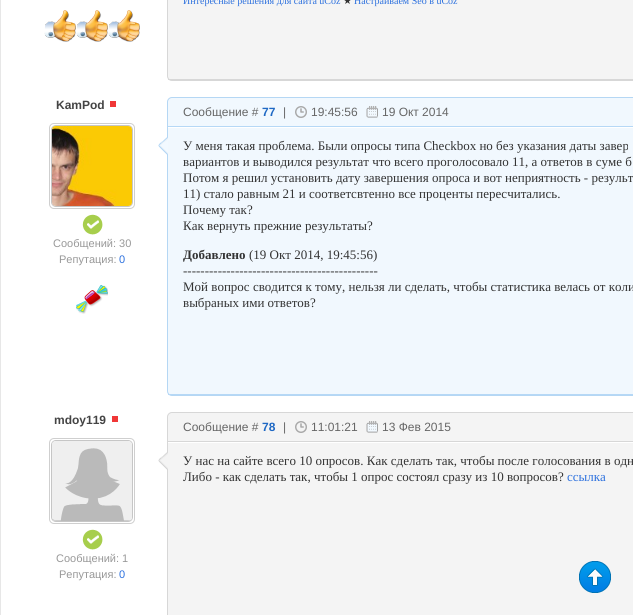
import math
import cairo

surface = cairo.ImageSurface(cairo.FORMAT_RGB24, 633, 615)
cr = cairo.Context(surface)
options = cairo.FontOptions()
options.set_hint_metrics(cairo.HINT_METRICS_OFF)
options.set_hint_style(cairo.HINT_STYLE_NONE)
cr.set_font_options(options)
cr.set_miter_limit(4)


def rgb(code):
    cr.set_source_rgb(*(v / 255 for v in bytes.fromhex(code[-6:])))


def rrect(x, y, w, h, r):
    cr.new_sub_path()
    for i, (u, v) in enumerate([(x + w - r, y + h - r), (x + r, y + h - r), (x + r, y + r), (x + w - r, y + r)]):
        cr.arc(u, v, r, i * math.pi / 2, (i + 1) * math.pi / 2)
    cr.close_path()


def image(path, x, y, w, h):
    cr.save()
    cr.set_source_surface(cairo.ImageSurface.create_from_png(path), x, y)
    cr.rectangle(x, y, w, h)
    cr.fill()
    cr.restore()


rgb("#ffffff")
cr.paint()
cr.rectangle(0.5, -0.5, 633, 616)
rgb("#e7e7e7")
cr.set_line_width(1)
cr.stroke()
rgb("#f4f4f4")
rrect(167.5, -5.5, 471, 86, 4.5)
cr.fill_preserve()
rgb("#d7d7d7")
cr.stroke()
cr.rectangle(168, 79, 465, 1)
cr.fill()
image("img/1.png", 44, 10, 32, 32)
image("img/1.png", 76, 10, 32, 32)
image("img/1.png", 108, 10, 32, 32)
rgb("#f03737")
cr.rectangle(110, 101, 6, 6)
cr.fill()
rrect(49.5, 123.5, 85, 85, 4.5)
rgb("#cfcfcf")
cr.stroke()
rrect(51.5, 125.5, 81, 81, 4.5)
rgb("#c6c6c6")
cr.stroke()
image("img/2.png", 52, 126, 80, 80)
image("img/3.png", 82, 214, 21, 21)
image("img/4.png", 76, 285, 32, 29)
rgb("#f1f8fe")
rrect(167.5, 97.5, 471, 298, 4.5)
cr.fill_preserve()
rgb("#b5d7f4")
cr.stroke()
rgb("#b6d8f6")
cr.rectangle(168, 126, 465, 1)
cr.fill()
image("img/5.png", 295, 106, 12, 12)
image("img/6.png", 366, 106, 12, 12)
image("img/7.png", 158, 137, 10, 18)
for x, y, w, h, color in [
    (168, 127, 465, 1, "#ffffff"),
    (168, 394, 465, 1, "#b6d8f6"),
    (112, 416, 6, 6, "#f03737"),
]:
    rgb(color)
    cr.rectangle(x, y, w, h)
    cr.fill()
rrect(49.5, 438.5, 85, 85, 4.5)
rgb("#cfcfcf")
cr.stroke()
rrect(51.5, 440.5, 81, 81, 4.5)
rgb("#c6c6c6")
cr.stroke()
image("img/8.png", 52, 441, 80, 80)
image("img/3.png", 82, 529, 21, 21)
rgb("#f4f4f4")
rrect(167.5, 412.5, 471, 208, 4.5)
cr.fill_preserve()
rgb("#d7d7d7")
cr.stroke()
cr.rectangle(168, 441, 465, 1)
cr.fill()
image("img/9.png", 295, 421, 12, 12)
image("img/10.png", 366, 421, 12, 12)
image("img/11.png", 158, 452, 10, 18)
rgb("#ffffff")
cr.rectangle(168, 442, 465, 1)
cr.fill()
image("img/12.png", 579, 561, 32, 32)
cr.select_font_face("Liberation Serif")
cr.set_font_size(10)
rgb("#2d71de")
cr.move_to(183, 4)
cr.show_text("Интересные решения для сайта uCoz")
cr.select_font_face("DejaVu Sans")
rgb("#333333")
cr.move_to(343, 4)
cr.show_text("★")
cr.select_font_face("Liberation Serif")
rgb("#2d71de")
cr.move_to(354, 4)
cr.show_text("Настраиваем Seo в uCoz")
cr.select_font_face("Liberation Sans", cairo.FONT_SLANT_NORMAL, cairo.FONT_WEIGHT_BOLD)
cr.set_font_size(12)
rgb("#444444")
cr.move_to(56, 109)
cr.show_text("KamPod")
cr.select_font_face("Liberation Sans")
cr.set_font_size(11)
rgb("#989898")
cr.move_to(53, 247)
cr.show_text("Сообщений: 30")
cr.move_to(59, 263)
cr.show_text("Репутация:")
rgb("#2d71de")
cr.move_to(119, 263)
cr.show_text("0")
cr.set_font_size(12)
rgb("#666666")
cr.move_to(183, 116)
cr.show_text("Сообщение #")
cr.select_font_face("Liberation Sans", cairo.FONT_SLANT_NORMAL, cairo.FONT_WEIGHT_BOLD)
rgb("#1e68c4")
cr.move_to(262, 116)
cr.show_text("77")
cr.select_font_face("Liberation Sans")
rgb("#666666")
for x, y, s in [
    (283, 116, "|"),
    (311, 116, "19:45:56"),
    (382, 116, "19 Окт 2014"),
]:
    cr.move_to(x, y)
    cr.show_text(s)
cr.select_font_face("Liberation Serif")
cr.set_font_size(13)
rgb("#333333")
for x, y, s in [
    (183, 150, "У меня такая проблема. Были опросы типа Checkbox но без указания даты завер"),
    (183, 166, "вариантов и выводился результат что всего проголосовало 11, а ответов в суме б"),
    (183, 182, "Потом я решил установить дату завершения опроса и вот неприятность - результ"),
    (183, 198, "11) стало равным 21 и соответсвтенно все проценты пересчитались."),
    (183, 214, "Почему так?"),
    (183, 230, "Как вернуть прежние результаты?"),
]:
    cr.move_to(x, y)
    cr.show_text(s)
cr.select_font_face("Liberation Serif", cairo.FONT_SLANT_NORMAL, cairo.FONT_WEIGHT_BOLD)
cr.move_to(183, 259)
cr.show_text("Добавлено")
cr.select_font_face("Liberation Serif")
for x, y, s in [
    (249, 259, "(19 Окт 2014, 19:45:56)"),
    (183, 275, "---------------------------------------------"),
    (183, 291, "Мой вопрос сводится к тому, нельзя ли сделать, чтобы статистика велась от коли"),
    (183, 307, "выбраных ими ответов?"),
]:
    cr.move_to(x, y)
    cr.show_text(s)
cr.select_font_face("Liberation Sans", cairo.FONT_SLANT_NORMAL, cairo.FONT_WEIGHT_BOLD)
cr.set_font_size(12)
rgb("#444444")
cr.move_to(54, 424)
cr.show_text("mdoy119")
cr.select_font_face("Liberation Sans")
cr.set_font_size(11)
rgb("#989898")
cr.move_to(56, 562)
cr.show_text("Сообщений: 1")
cr.move_to(59, 578)
cr.show_text("Репутация:")
rgb("#2d71de")
cr.move_to(119, 578)
cr.show_text("0")
cr.set_font_size(12)
rgb("#666666")
cr.move_to(183, 431)
cr.show_text("Сообщение #")
cr.select_font_face("Liberation Sans", cairo.FONT_SLANT_NORMAL, cairo.FONT_WEIGHT_BOLD)
rgb("#1e68c4")
cr.move_to(262, 431)
cr.show_text("78")
cr.select_font_face("Liberation Sans")
rgb("#666666")
for x, y, s in [
    (283, 431, "|"),
    (311, 431, "11:01:21"),
    (382, 431, "13 Фев 2015"),
]:
    cr.move_to(x, y)
    cr.show_text(s)
cr.select_font_face("Liberation Serif")
cr.set_font_size(13)
rgb("#333333")
cr.move_to(183, 465)
cr.show_text("У нас на сайте всего 10 опросов. Как сделать так, чтобы после голосования в одн")
cr.move_to(183, 481)
cr.show_text("Либо - как сделать так, чтобы 1 опрос состоял сразу из 10 вопросов?")
rgb("#2d71de")
cr.move_to(567, 481)
cr.show_text("ссылка")
surface.write_to_png("page.png")
